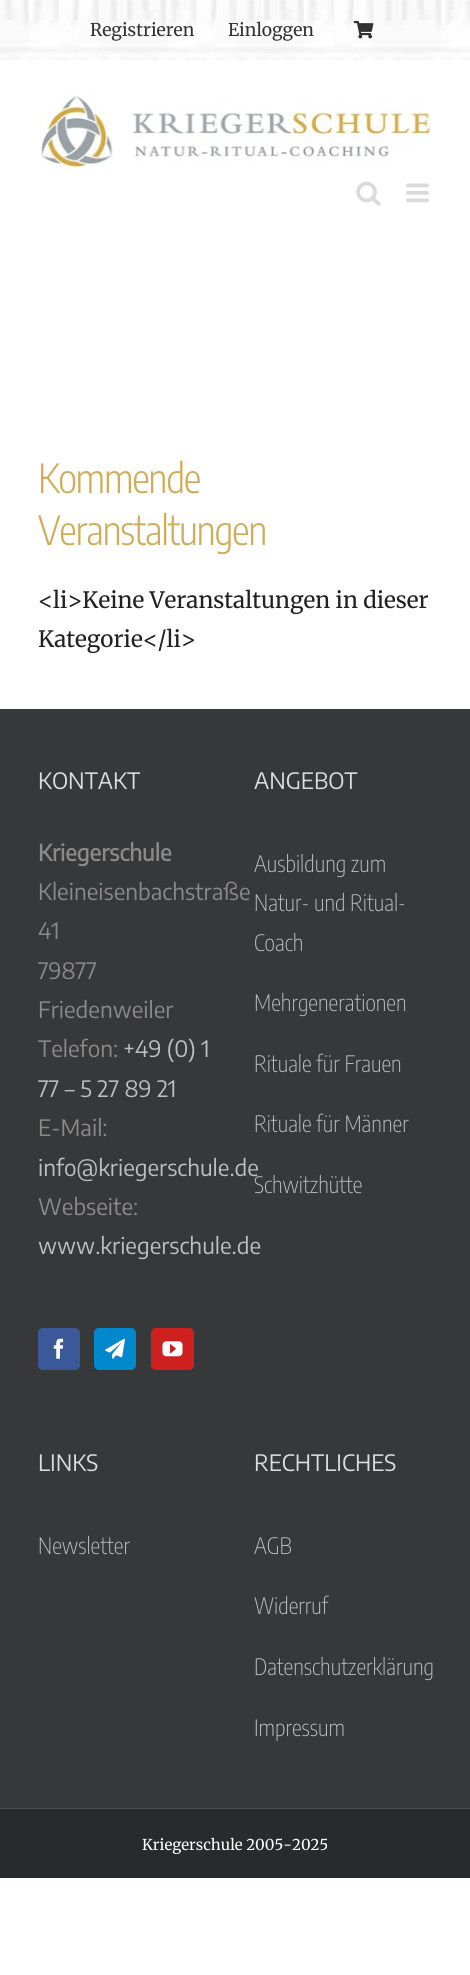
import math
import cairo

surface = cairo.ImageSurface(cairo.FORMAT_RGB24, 470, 1975)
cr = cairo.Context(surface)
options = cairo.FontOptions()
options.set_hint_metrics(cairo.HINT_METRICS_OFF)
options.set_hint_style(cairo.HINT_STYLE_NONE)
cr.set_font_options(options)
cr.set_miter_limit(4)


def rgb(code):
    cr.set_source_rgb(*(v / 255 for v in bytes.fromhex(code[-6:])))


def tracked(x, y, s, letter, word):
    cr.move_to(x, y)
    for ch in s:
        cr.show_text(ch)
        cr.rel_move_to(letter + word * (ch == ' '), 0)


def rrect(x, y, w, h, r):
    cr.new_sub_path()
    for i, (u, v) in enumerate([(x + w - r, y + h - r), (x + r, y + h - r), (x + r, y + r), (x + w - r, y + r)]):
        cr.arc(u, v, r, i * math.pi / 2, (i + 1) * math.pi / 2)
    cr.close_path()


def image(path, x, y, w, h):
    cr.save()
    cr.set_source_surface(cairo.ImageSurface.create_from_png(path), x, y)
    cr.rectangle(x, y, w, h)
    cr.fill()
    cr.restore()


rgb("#ffffff")
cr.paint()
image("img/1.png", 0, 0, 470, 60)
rgb("#ffffff")
cr.rectangle(210, 0, 1, 60)
cr.fill()
cr.rectangle(330, 0, 1, 60)
cr.fill()
image("img/2.png", 353, 20, 21, 19)
image("img/3.png", 37, 94, 396, 80)
image("img/4.png", 356, 181, 25, 25)
image("img/5.png", 406, 183, 23, 20)
rgb("#363839")
cr.rectangle(0, 709, 470, 1099)
cr.fill()
rgb("#3b5998")
rrect(38.5, 1328.5, 41, 41, 4.5)
cr.fill_preserve()
cr.set_line_width(1)
cr.stroke()
image("img/6.png", 53, 1338, 11, 21)
rgb("#0088cc")
rrect(94.5, 1328.5, 41, 41, 4.5)
cr.fill_preserve()
cr.stroke()
image("img/7.png", 105, 1338, 20, 21)
rgb("#cd201f")
rrect(151.5, 1328.5, 42, 41, 4.5)
cr.fill_preserve()
cr.stroke()
image("img/8.png", 162, 1341, 21, 16)
rgb("#282a2b")
cr.rectangle(0, 1809, 470, 69)
cr.fill()
rgb("#4b4c4d")
cr.rectangle(0, 1808, 470, 1)
cr.fill()
cr.select_font_face("Merriweather")
cr.set_font_size(17.5)
rgb("#333333")
cr.move_to(90, 36)
cr.show_text("Registrieren")
cr.move_to(228, 36)
cr.show_text("Einloggen")
cr.select_font_face("Encode Sans Condensed Light")
cr.set_font_size(40)
rgb("#d0ad5c")
tracked(38, 493, "Kommende", -1.25, 0)
tracked(38, 545, "Veranstaltungen", -1.25, 0)
cr.select_font_face("Merriweather")
cr.set_font_size(22.5)
rgb("#212121")
cr.move_to(38, 608)
cr.show_text("<li>Keine Veranstaltungen in dieser")
cr.move_to(38, 647)
cr.show_text("Kategorie</li>")
cr.select_font_face("Encode Sans Condensed Thin")
rgb("#dddddd")
cr.move_to(38, 789)
cr.show_text("KONTAKT")
cr.select_font_face("Encode Sans Condensed", cairo.FONT_SLANT_NORMAL, cairo.FONT_WEIGHT_BOLD)
rgb("#8c8989")
cr.move_to(38, 861)
cr.show_text("Kriegerschule")
cr.select_font_face("Encode Sans Condensed Thin")
for x, y, s in [
    (38, 900, "Kleineisenbachstraße"),
    (38, 939, "41"),
    (38, 979, "79877"),
    (38, 1018, "Friedenweiler"),
    (38, 1057, "Telefon:"),
]:
    cr.move_to(x, y)
    cr.show_text(s)
rgb("#bfbfbf")
cr.move_to(123, 1057)
cr.show_text("+49 (0) 1")
cr.move_to(38, 1097)
cr.show_text("77 – 5 27 89 21")
rgb("#8c8989")
cr.move_to(38, 1136)
cr.show_text("E-Mail:")
rgb("#bfbfbf")
cr.move_to(38, 1176)
cr.show_text("info@kriegerschule.de")
rgb("#8c8989")
cr.move_to(38, 1215)
cr.show_text("Webseite:")
rgb("#bfbfbf")
cr.move_to(38, 1254)
cr.show_text("www.kriegerschule.de")
rgb("#dddddd")
cr.move_to(254, 789)
cr.show_text("ANGEBOT")
cr.select_font_face("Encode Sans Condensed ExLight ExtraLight")
rgb("#bfbfbf")
for x, y, s in [
    (254, 872, "Ausbildung zum"),
    (254, 911, "Natur- und Ritual-"),
    (254, 951, "Coach"),
    (254, 1011, "Mehrgenerationen"),
    (254, 1072, "Rituale für Frauen"),
    (254, 1132, "Rituale für Männer"),
    (254, 1193, "Schwitzhütte"),
]:
    cr.move_to(x, y)
    cr.show_text(s)
cr.select_font_face("Encode Sans Condensed Thin")
rgb("#dddddd")
cr.move_to(38, 1471)
cr.show_text("LINKS")
cr.select_font_face("Encode Sans Condensed ExLight ExtraLight")
rgb("#bfbfbf")
cr.move_to(38, 1554)
cr.show_text("Newsletter")
cr.select_font_face("Encode Sans Condensed Thin")
rgb("#dddddd")
cr.move_to(254, 1471)
cr.show_text("RECHTLICHES")
cr.select_font_face("Encode Sans Condensed ExLight ExtraLight")
rgb("#bfbfbf")
for x, y, s in [
    (254, 1554, "AGB"),
    (254, 1614, "Widerruf"),
    (254, 1675, "Datenschutzerklärung"),
    (254, 1736, "Impressum"),
]:
    cr.move_to(x, y)
    cr.show_text(s)
cr.select_font_face("Merriweather")
cr.set_font_size(15)
rgb("#ffffff")
cr.move_to(142, 1850)
cr.show_text("Kriegerschule 2005-2025")
surface.write_to_png("page.png")
